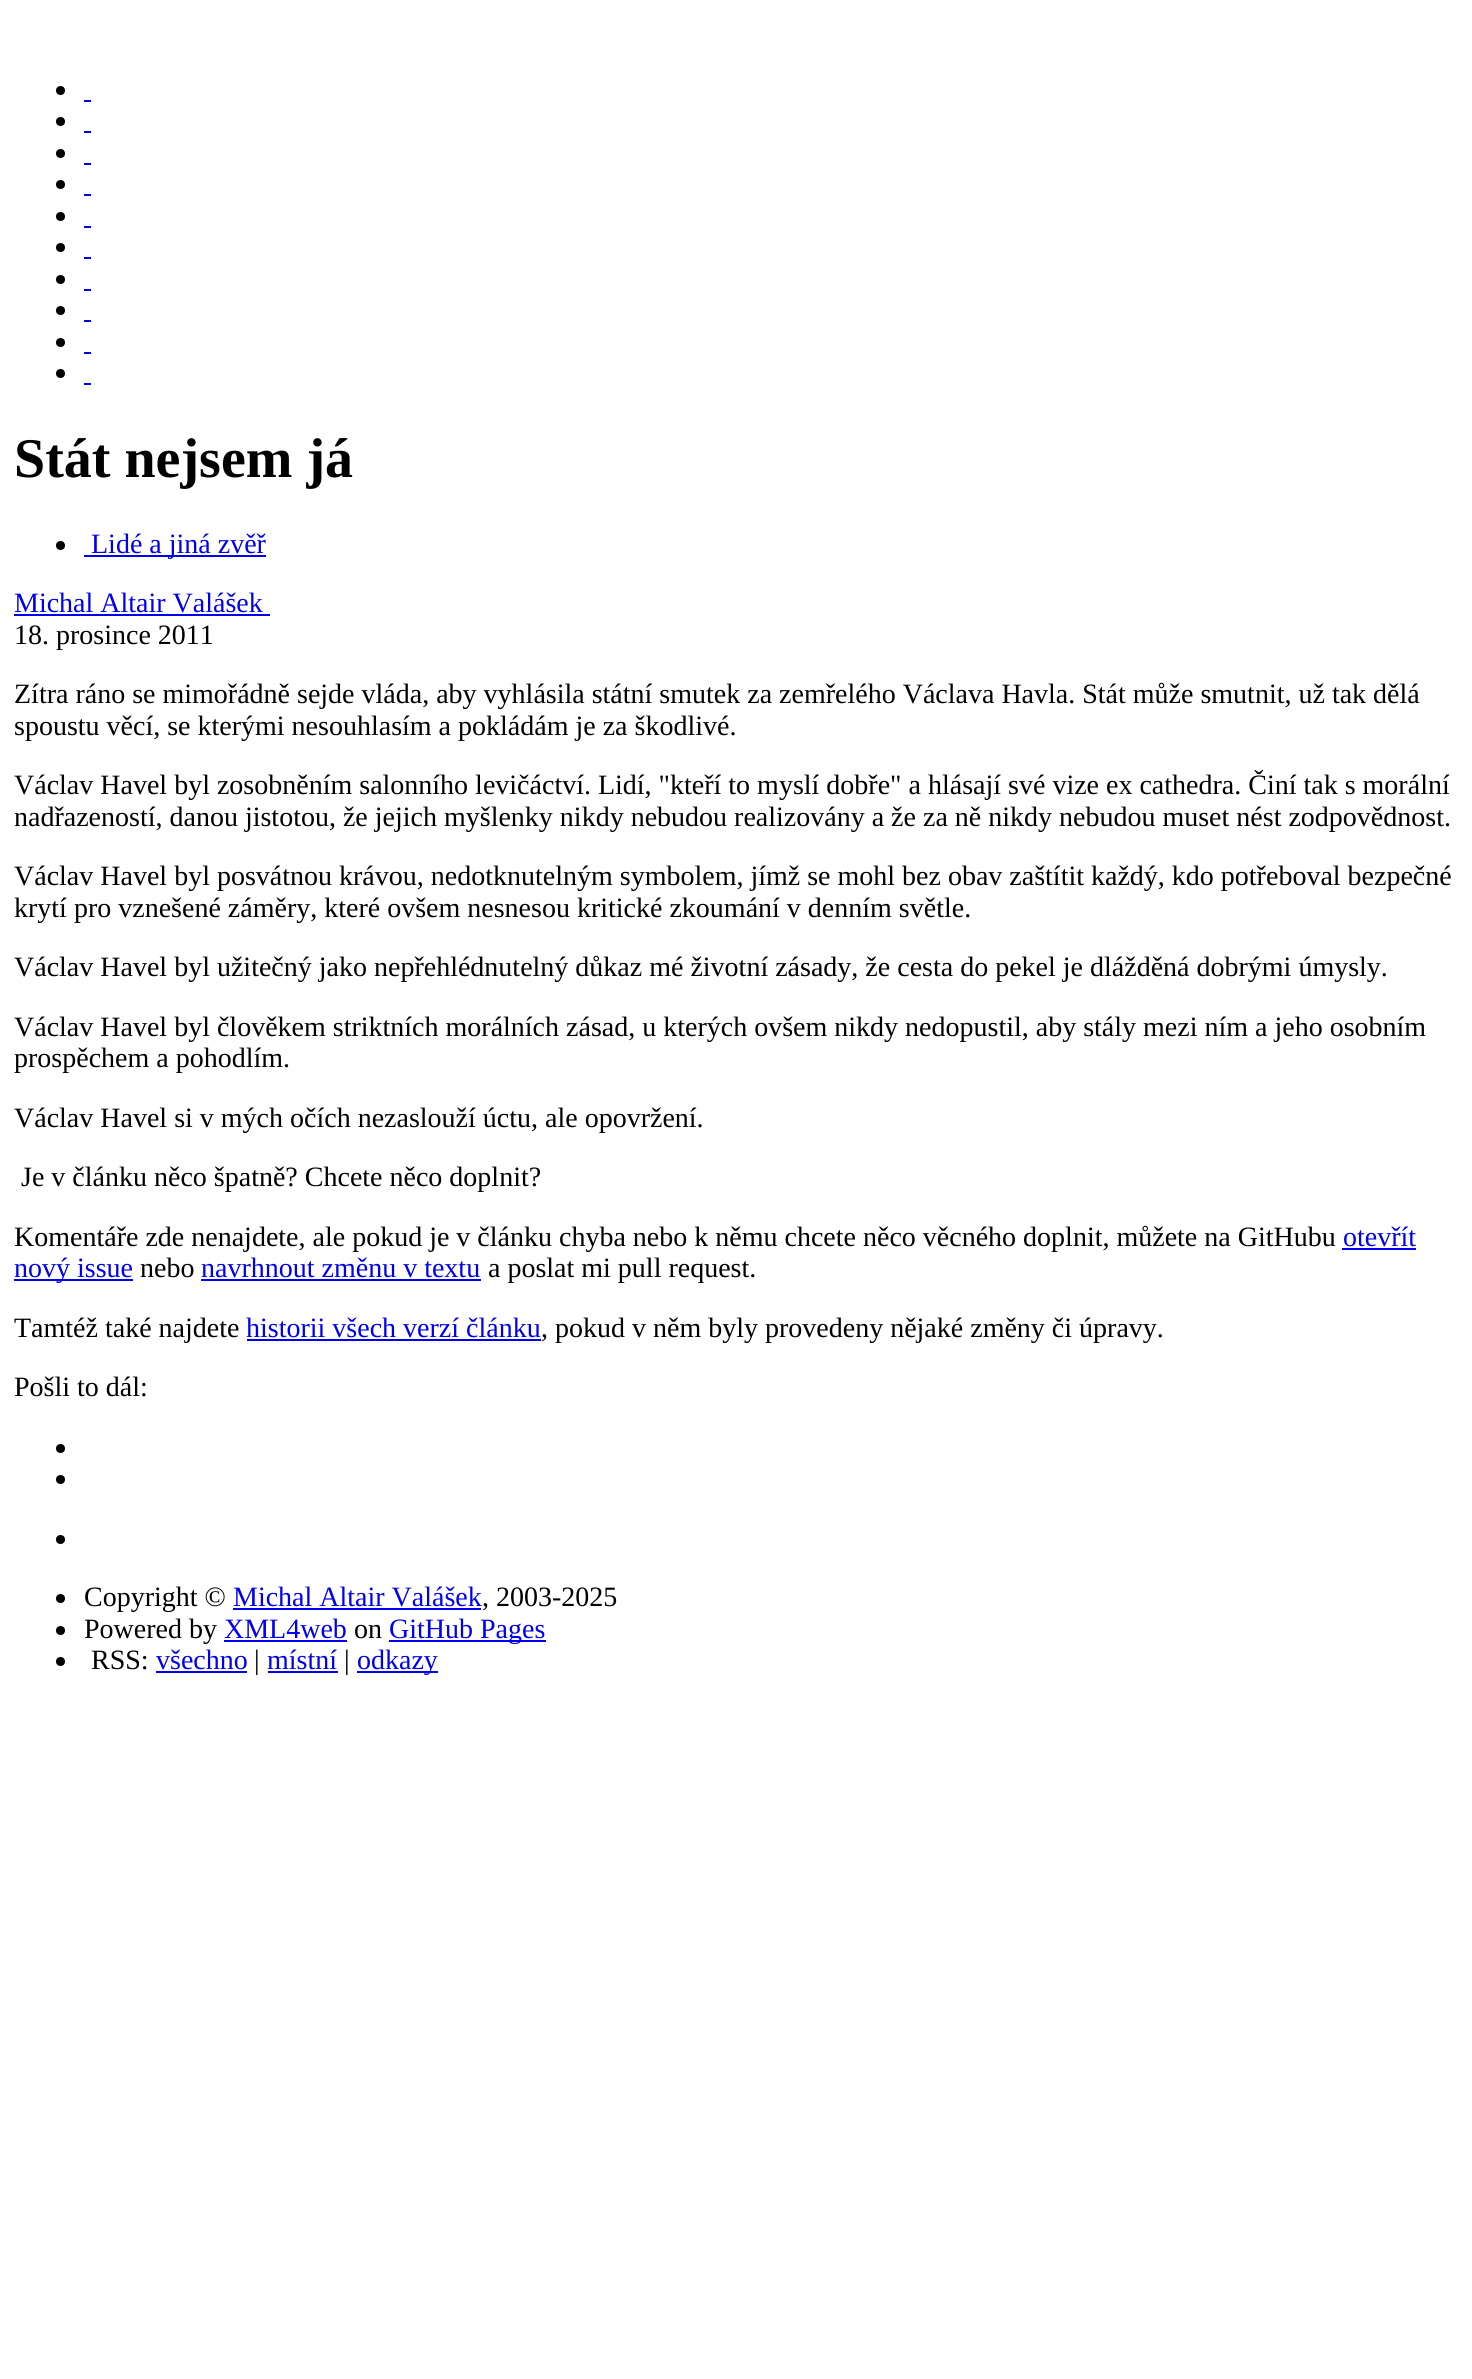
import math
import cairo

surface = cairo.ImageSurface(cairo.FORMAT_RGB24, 1472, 2379)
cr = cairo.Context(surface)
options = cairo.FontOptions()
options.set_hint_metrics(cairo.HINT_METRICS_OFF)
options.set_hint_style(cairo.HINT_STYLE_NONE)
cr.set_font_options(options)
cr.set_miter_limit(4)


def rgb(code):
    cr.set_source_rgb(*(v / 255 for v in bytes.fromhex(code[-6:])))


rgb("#ffffff")
cr.paint()
rgb("#000000")
cr.arc(60.5, 90.5, 4.5, 0, 2 * math.pi)
cr.fill()
rgb("#0000ee")
cr.rectangle(84, 100, 7, 2)
cr.fill()
rgb("#000000")
cr.arc(60.5, 121.5, 4.5, 0, 2 * math.pi)
cr.fill()
rgb("#0000ee")
cr.rectangle(84, 131, 7, 2)
cr.fill()
rgb("#000000")
cr.arc(60.5, 153.5, 4.5, 0, 2 * math.pi)
cr.fill()
rgb("#0000ee")
cr.rectangle(84, 163, 7, 2)
cr.fill()
rgb("#000000")
cr.arc(60.5, 184.5, 4.5, 0, 2 * math.pi)
cr.fill()
rgb("#0000ee")
cr.rectangle(84, 194, 7, 2)
cr.fill()
rgb("#000000")
cr.arc(60.5, 216.5, 4.5, 0, 2 * math.pi)
cr.fill()
rgb("#0000ee")
cr.rectangle(84, 226, 7, 2)
cr.fill()
rgb("#000000")
cr.arc(60.5, 247.5, 4.5, 0, 2 * math.pi)
cr.fill()
rgb("#0000ee")
cr.rectangle(84, 257, 7, 2)
cr.fill()
rgb("#000000")
cr.arc(60.5, 279.5, 4.5, 0, 2 * math.pi)
cr.fill()
rgb("#0000ee")
cr.rectangle(84, 289, 7, 2)
cr.fill()
rgb("#000000")
cr.arc(60.5, 310.5, 4.5, 0, 2 * math.pi)
cr.fill()
rgb("#0000ee")
cr.rectangle(84, 320, 7, 2)
cr.fill()
rgb("#000000")
cr.arc(60.5, 342.5, 4.5, 0, 2 * math.pi)
cr.fill()
rgb("#0000ee")
cr.rectangle(84, 352, 7, 2)
cr.fill()
rgb("#000000")
cr.arc(60.5, 373.5, 4.5, 0, 2 * math.pi)
cr.fill()
rgb("#0000ee")
cr.rectangle(84, 383, 7, 2)
cr.fill()
rgb("#000000")
cr.arc(60.5, 545.5, 4.5, 0, 2 * math.pi)
cr.fill()
for x, y, w, h, color in [
    (84, 555, 182, 2, "#0000ee"),
    (14, 614, 256, 2, "#0000ee"),
    (1342, 1248, 74, 2, "#0000ee"),
    (14, 1279, 119, 2, "#0000ee"),
    (201, 1279, 280, 2, "#0000ee"),
    (247, 1339, 294, 2, "#0000ee"),
]:
    rgb(color)
    cr.rectangle(x, y, w, h)
    cr.fill()
rgb("#000000")
cr.arc(60.5, 1448.5, 4.5, 0, 2 * math.pi)
cr.fill()
cr.arc(60.5, 1479.5, 4.5, 0, 2 * math.pi)
cr.fill()
cr.arc(60.5, 1539.5, 4.5, 0, 2 * math.pi)
cr.fill()
cr.arc(60.5, 1598.5, 4.5, 0, 2 * math.pi)
cr.fill()
rgb("#0000ee")
cr.rectangle(233, 1608, 248, 2)
cr.fill()
rgb("#000000")
cr.arc(60.5, 1630.5, 4.5, 0, 2 * math.pi)
cr.fill()
rgb("#0000ee")
cr.rectangle(224, 1640, 123, 2)
cr.fill()
cr.rectangle(389, 1640, 157, 2)
cr.fill()
rgb("#000000")
cr.arc(60.5, 1661.5, 4.5, 0, 2 * math.pi)
cr.fill()
for x, y, w, h, color in [
    (156, 1671, 91, 2, "#0000ee"),
    (268, 1671, 70, 2, "#0000ee"),
    (357, 1671, 81, 2, "#0000ee"),
]:
    rgb(color)
    cr.rectangle(x, y, w, h)
    cr.fill()
cr.select_font_face("Liberation Serif", cairo.FONT_SLANT_NORMAL, cairo.FONT_WEIGHT_BOLD)
cr.set_font_size(56)
rgb("#000000")
cr.move_to(14, 477)
cr.show_text("Stát nejsem já")
cr.select_font_face("Liberation Serif")
cr.set_font_size(28)
rgb("#0000ee")
cr.move_to(91, 553)
cr.show_text("Lidé a jiná zvěř")
cr.move_to(14, 612)
cr.show_text("Michal Altair Valášek")
rgb("#000000")
for x, y, s in [
    (14, 644, "18. prosince 2011"),
    (14, 703, "Zítra ráno se mimořádně sejde vláda, aby vyhlásila státní smutek za zemřelého Václava Havla. Stát může smutnit, už tak dělá"),
    (14, 735, "spoustu věcí, se kterými nesouhlasím a pokládám je za škodlivé."),
    (14, 794, "Václav Havel byl zosobněním salonního levičáctví. Lidí, \"kteří to myslí dobře\" a hlásají své vize ex cathedra. Činí tak s morální"),
    (14, 826, "nadřazeností, danou jistotou, že jejich myšlenky nikdy nebudou realizovány a že za ně nikdy nebudou muset nést zodpovědnost."),
    (14, 885, "Václav Havel byl posvátnou krávou, nedotknutelným symbolem, jímž se mohl bez obav zaštítit každý, kdo potřeboval bezpečné"),
    (14, 917, "krytí pro vznešené záměry, které ovšem nesnesou kritické zkoumání v denním světle."),
    (14, 976, "Václav Havel byl užitečný jako nepřehlédnutelný důkaz mé životní zásady, že cesta do pekel je dlážděná dobrými úmysly."),
    (14, 1036, "Václav Havel byl člověkem striktních morálních zásad, u kterých ovšem nikdy nedopustil, aby stály mezi ním a jeho osobním"),
    (14, 1067, "prospěchem a pohodlím."),
    (14, 1127, "Václav Havel si v mých očích nezaslouží úctu, ale opovržení."),
    (21, 1186, "Je v článku něco špatně? Chcete něco doplnit?"),
    (14, 1246, "Komentáře zde nenajdete, ale pokud je v článku chyba nebo k němu chcete něco věcného doplnit, můžete na GitHubu"),
]:
    cr.move_to(x, y)
    cr.show_text(s)
rgb("#0000ee")
cr.move_to(1343, 1246)
cr.show_text("otevřít")
cr.move_to(14, 1277)
cr.show_text("nový issue")
rgb("#000000")
cr.move_to(140, 1277)
cr.show_text("nebo")
rgb("#0000ee")
cr.move_to(201, 1277)
cr.show_text("navrhnout změnu v textu")
rgb("#000000")
cr.move_to(488, 1277)
cr.show_text("a poslat mi pull request.")
cr.move_to(14, 1337)
cr.show_text("Tamtéž také najdete")
rgb("#0000ee")
cr.move_to(246, 1337)
cr.show_text("historii všech verzí článku")
rgb("#000000")
for x, y, s in [
    (541, 1337, ", pokud v něm byly provedeny nějaké změny či úpravy."),
    (14, 1396, "Pošli to dál:"),
    (84, 1606, "Copyright ©"),
]:
    cr.move_to(x, y)
    cr.show_text(s)
rgb("#0000ee")
cr.move_to(233, 1606)
cr.show_text("Michal Altair Valášek")
rgb("#000000")
cr.move_to(482, 1606)
cr.show_text(", 2003-2025")
cr.move_to(84, 1638)
cr.show_text("Powered by")
rgb("#0000ee")
cr.move_to(224, 1638)
cr.show_text("XML4web")
rgb("#000000")
cr.move_to(354, 1638)
cr.show_text("on")
rgb("#0000ee")
cr.move_to(389, 1638)
cr.show_text("GitHub Pages")
rgb("#000000")
cr.move_to(91, 1669)
cr.show_text("RSS:")
rgb("#0000ee")
cr.move_to(156, 1669)
cr.show_text("všechno")
rgb("#000000")
cr.move_to(254, 1669)
cr.show_text("|")
rgb("#0000ee")
cr.move_to(267, 1669)
cr.show_text("místní")
rgb("#000000")
cr.move_to(344, 1669)
cr.show_text("|")
rgb("#0000ee")
cr.move_to(357, 1669)
cr.show_text("odkazy")
surface.write_to_png("page.png")
